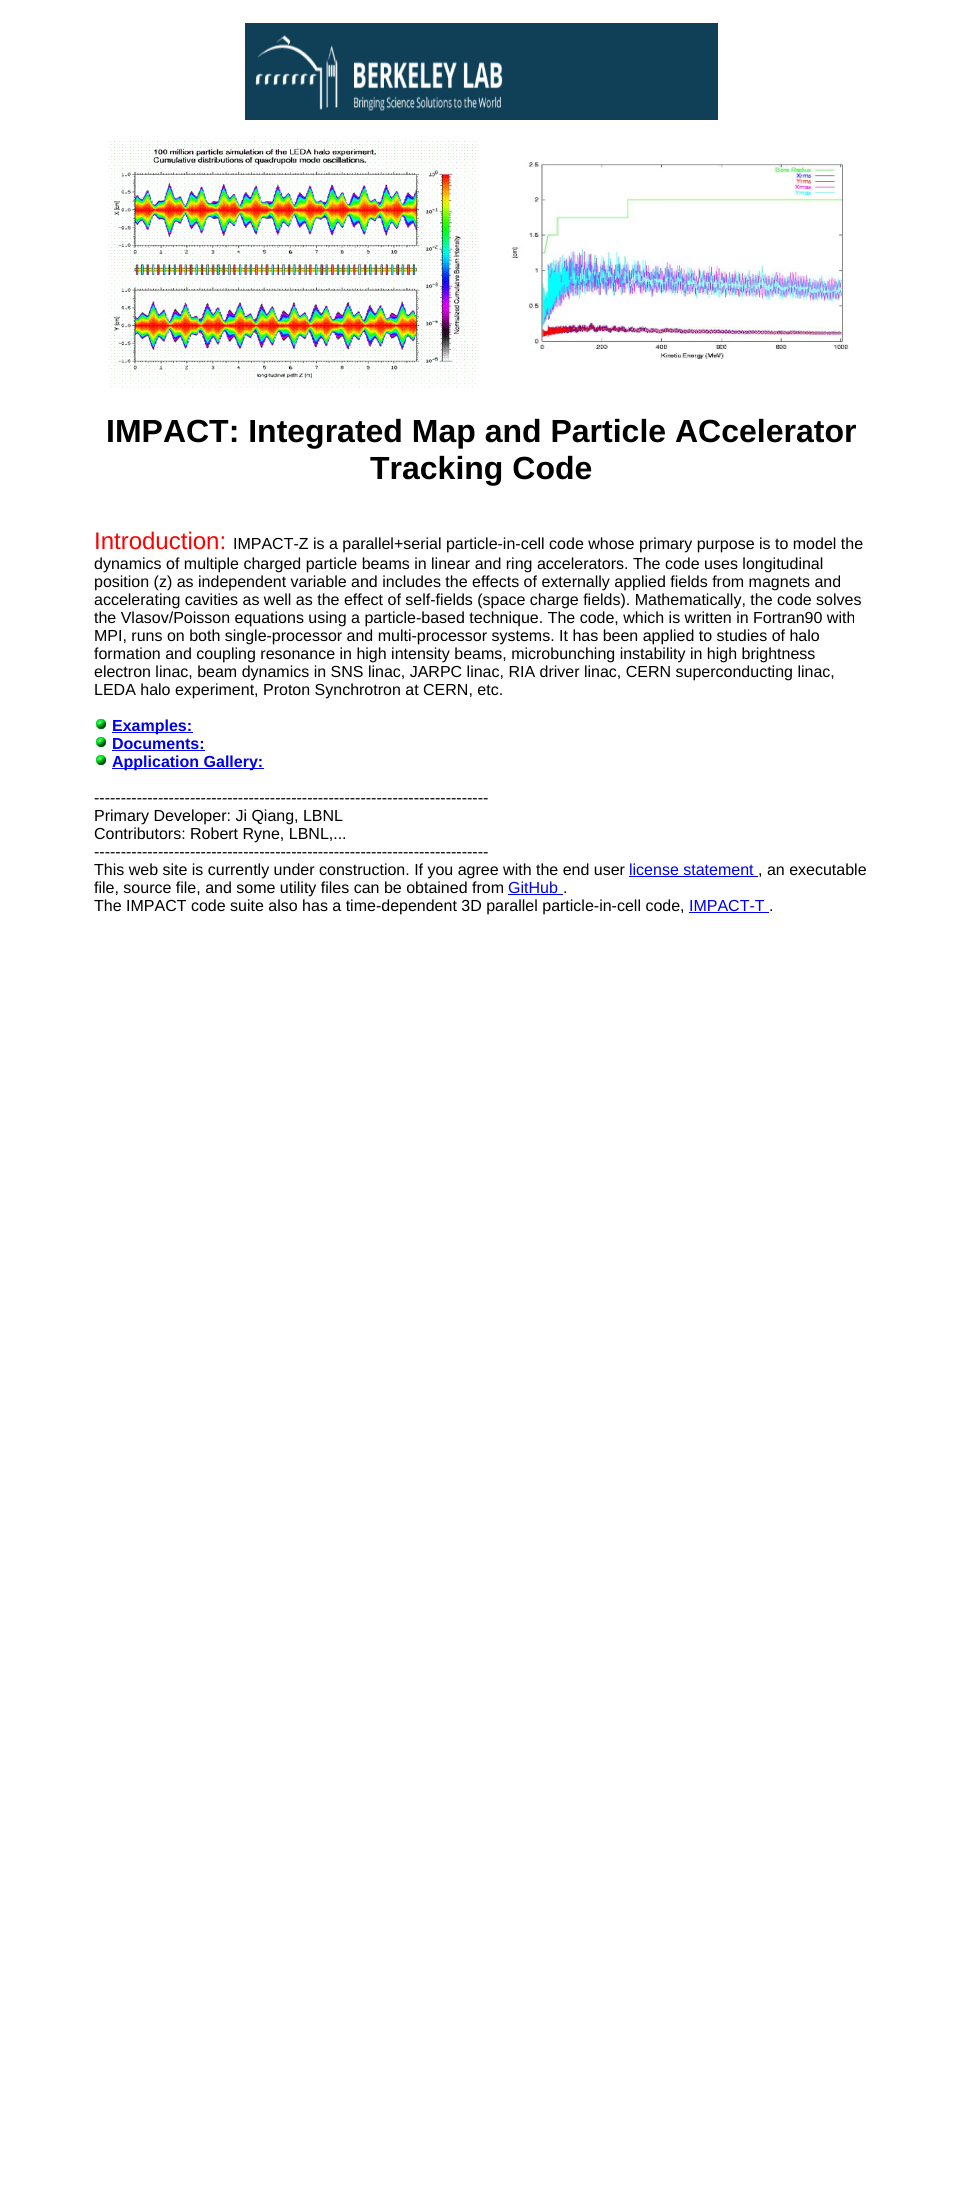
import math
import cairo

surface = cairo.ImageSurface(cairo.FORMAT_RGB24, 963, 2204)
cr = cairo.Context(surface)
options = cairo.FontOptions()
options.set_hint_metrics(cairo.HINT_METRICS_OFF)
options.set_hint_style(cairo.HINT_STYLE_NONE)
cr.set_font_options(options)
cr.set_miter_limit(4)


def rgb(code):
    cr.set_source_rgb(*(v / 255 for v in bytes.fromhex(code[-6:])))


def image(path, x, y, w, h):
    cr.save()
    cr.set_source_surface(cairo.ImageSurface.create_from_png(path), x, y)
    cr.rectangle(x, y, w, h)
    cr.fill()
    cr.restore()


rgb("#ffffff")
cr.paint()
image("img/1.png", 245, 23, 473, 97)
image("img/2.png", 108, 141, 371, 247)
image("img/3.png", 511, 161, 338, 198)
image("img/4.png", 96, 719, 10, 10)
rgb("#0000ee")
cr.rectangle(112, 732, 81, 1)
cr.fill()
image("img/4.png", 96, 737, 10, 10)
cr.rectangle(112, 750, 93, 1)
cr.fill()
image("img/4.png", 96, 755, 10, 10)
for x, y, w, h, color in [
    (112, 768, 152, 1, "#0000ee"),
    (629, 876, 129, 1, "#0000ee"),
    (508, 894, 55, 1, "#0000ee"),
    (689, 912, 80, 1, "#0000ee"),
]:
    rgb(color)
    cr.rectangle(x, y, w, h)
    cr.fill()
cr.select_font_face("Liberation Sans", cairo.FONT_SLANT_NORMAL, cairo.FONT_WEIGHT_BOLD)
cr.set_font_size(32)
rgb("#000000")
cr.move_to(106, 442)
cr.show_text("IMPACT: Integrated Map and Particle ACcelerator")
cr.move_to(370, 479)
cr.show_text("Tracking Code")
cr.select_font_face("Liberation Sans")
cr.set_font_size(24)
rgb("#ff0000")
cr.move_to(94, 549)
cr.show_text("Introduction:")
cr.set_font_size(16)
rgb("#000000")
for x, y, s in [
    (233, 549, "IMPACT-Z is a parallel+serial particle-in-cell code whose primary purpose is to model the"),
    (94, 569, "dynamics of multiple charged particle beams in linear and ring accelerators. The code uses longitudinal"),
    (94, 587, "position (z) as independent variable and includes the effects of externally applied fields from magnets and"),
    (94, 605, "accelerating cavities as well as the effect of self-fields (space charge fields). Mathematically, the code solves"),
    (94, 623, "the Vlasov/Poisson equations using a particle-based technique. The code, which is written in Fortran90 with"),
    (94, 641, "MPI, runs on both single-processor and multi-processor systems. It has been applied to studies of halo"),
    (94, 659, "formation and coupling resonance in high intensity beams, microbunching instability in high brightness"),
    (94, 677, "electron linac, beam dynamics in SNS linac, JARPC linac, RIA driver linac, CERN superconducting linac,"),
    (94, 695, "LEDA halo experiment, Proton Synchrotron at CERN, etc."),
]:
    cr.move_to(x, y)
    cr.show_text(s)
cr.select_font_face("Liberation Sans", cairo.FONT_SLANT_NORMAL, cairo.FONT_WEIGHT_BOLD)
rgb("#0000ee")
for x, y, s in [
    (112, 731, "Examples:"),
    (112, 749, "Documents:"),
    (112, 767, "Application Gallery:"),
]:
    cr.move_to(x, y)
    cr.show_text(s)
cr.select_font_face("Liberation Sans")
rgb("#000000")
for x, y, s in [
    (94, 803, "--------------------------------------------------------------------------"),
    (94, 821, "Primary Developer: Ji Qiang, LBNL"),
    (94, 839, "Contributors: Robert Ryne, LBNL,..."),
    (94, 857, "--------------------------------------------------------------------------"),
    (94, 875, "This web site is currently under construction. If you agree with the end user"),
]:
    cr.move_to(x, y)
    cr.show_text(s)
rgb("#0000ee")
cr.move_to(629, 875)
cr.show_text("license statement")
rgb("#000000")
cr.move_to(758, 875)
cr.show_text(", an executable")
cr.move_to(94, 893)
cr.show_text("file, source file, and some utility files can be obtained from")
rgb("#0000ee")
cr.move_to(508, 893)
cr.show_text("GitHub")
rgb("#000000")
cr.move_to(563, 893)
cr.show_text(".")
cr.move_to(94, 911)
cr.show_text("The IMPACT code suite also has a time-dependent 3D parallel particle-in-cell code,")
rgb("#0000ee")
cr.move_to(689, 911)
cr.show_text("IMPACT-T")
rgb("#000000")
cr.move_to(769, 911)
cr.show_text(".")
surface.write_to_png("page.png")
